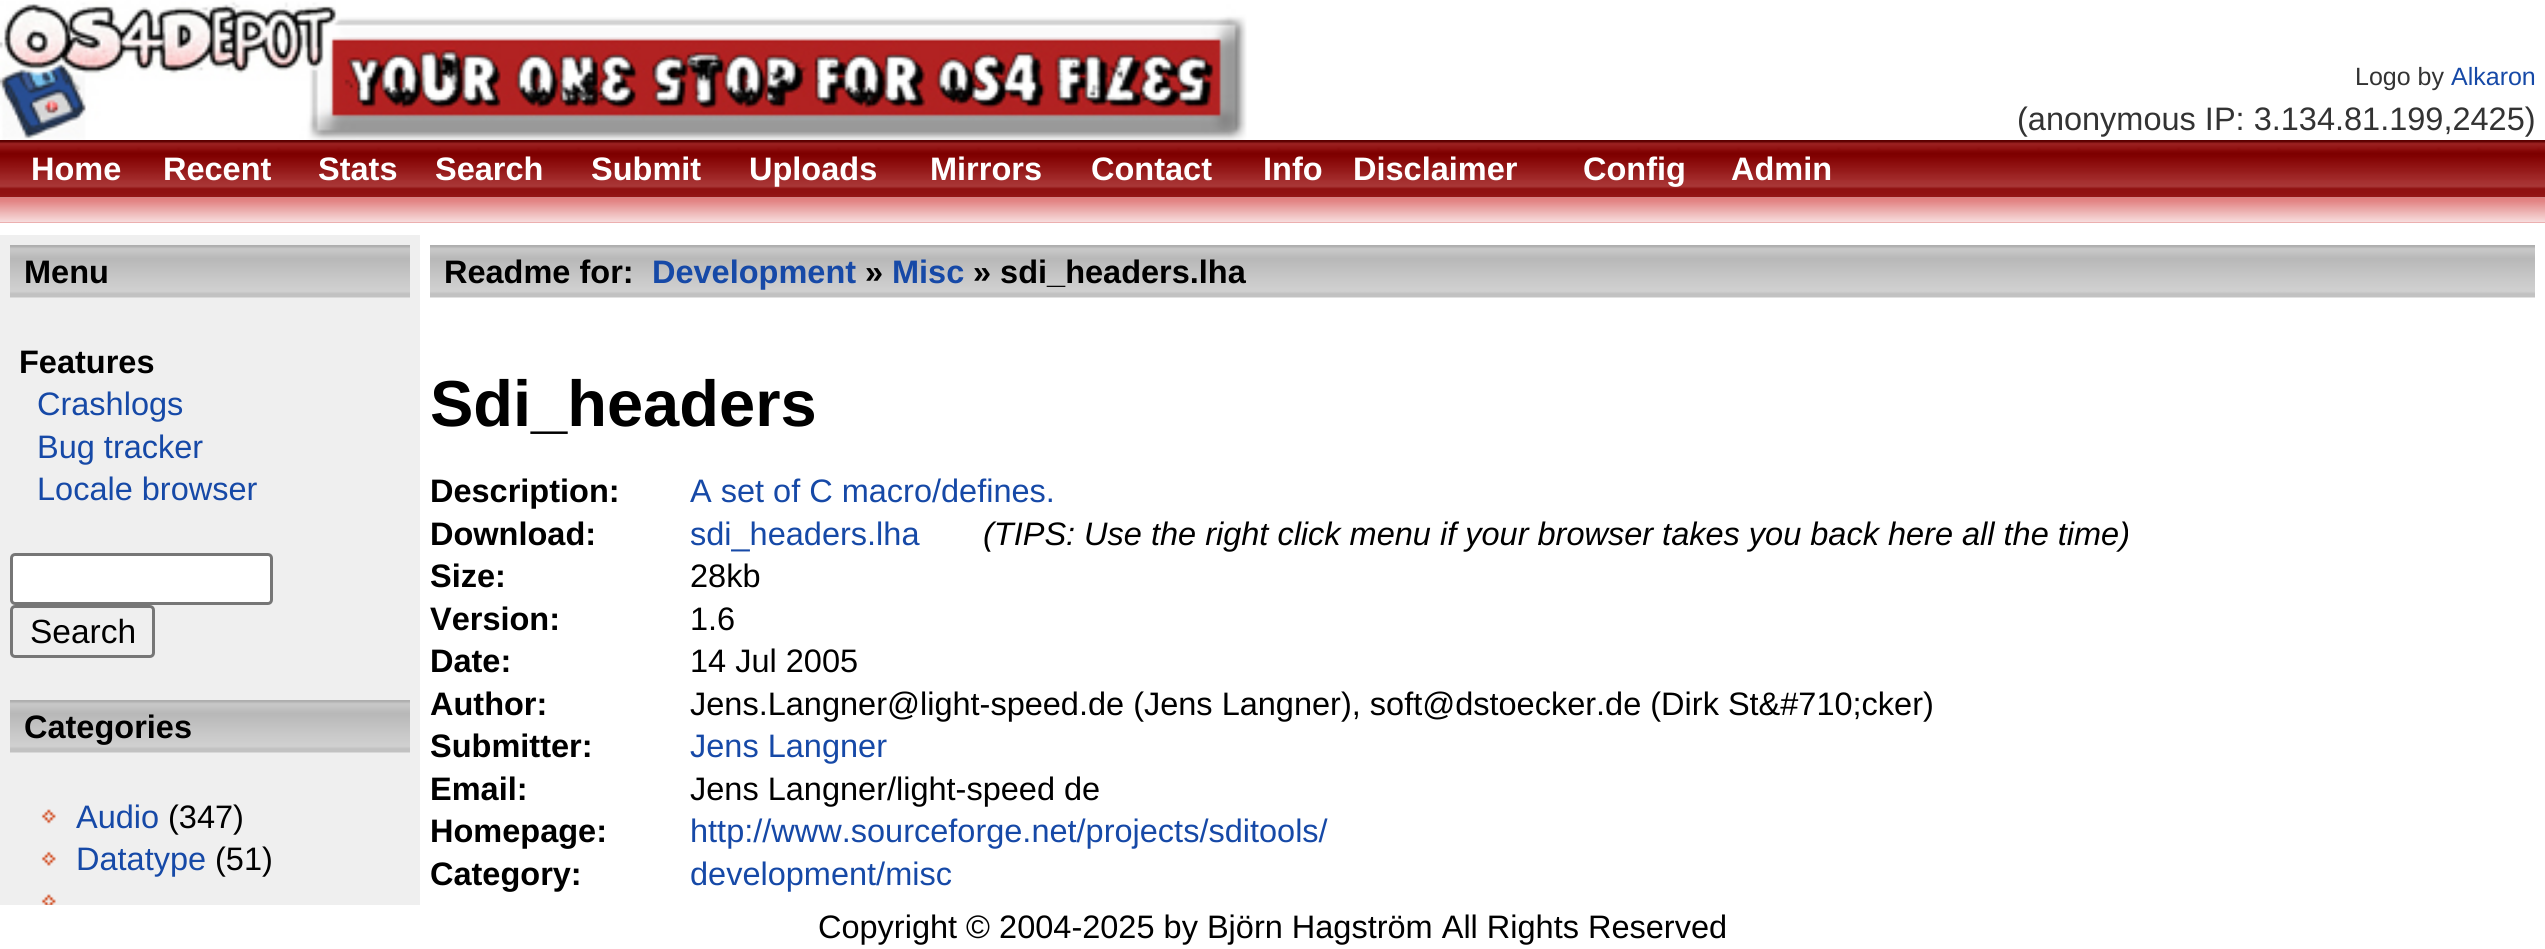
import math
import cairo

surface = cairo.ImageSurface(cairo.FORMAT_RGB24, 2545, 949)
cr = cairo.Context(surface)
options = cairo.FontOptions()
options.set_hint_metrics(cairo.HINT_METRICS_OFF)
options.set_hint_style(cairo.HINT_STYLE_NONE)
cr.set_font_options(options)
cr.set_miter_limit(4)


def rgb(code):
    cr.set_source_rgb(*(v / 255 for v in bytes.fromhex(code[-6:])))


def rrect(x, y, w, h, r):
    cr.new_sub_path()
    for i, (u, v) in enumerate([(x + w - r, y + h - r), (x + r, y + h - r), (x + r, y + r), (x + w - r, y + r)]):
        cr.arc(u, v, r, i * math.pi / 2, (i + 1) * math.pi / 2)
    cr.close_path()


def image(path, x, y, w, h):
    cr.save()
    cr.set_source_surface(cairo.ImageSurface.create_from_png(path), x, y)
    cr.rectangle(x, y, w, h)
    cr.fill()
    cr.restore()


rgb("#ffffff")
cr.paint()
image("img/1.png", 0, 0, 1247, 140)
image("img/2.png", 0, 140, 2545, 58)
rgb("#e18080")
cr.rectangle(0, 222, 2545, 1)
cr.fill()
image("img/3.png", 0, 197, 2545, 26)
rgb("#efefef")
cr.rectangle(0, 235, 420, 670)
cr.fill()
image("img/4.png", 10, 245, 400, 53)
rgb("#ffffff")
rrect(11.5, 554.5, 260, 49, 3.5)
cr.fill_preserve()
rgb("#767676")
cr.set_line_width(3)
cr.stroke()
rrect(11.5, 606.5, 142, 50, 3.5)
cr.stroke()
image("img/5.png", 10, 700, 400, 53)
image("img/6.png", 41, 809, 15, 15)
image("img/7.png", 41, 851, 15, 15)
image("img/8.png", 41, 894, 15, 11)
image("img/9.png", 430, 245, 2105, 53)
cr.select_font_face("Liberation Sans")
cr.set_font_size(25)
rgb("#333333")
cr.move_to(2355, 85)
cr.show_text("Logo by")
rgb("#1649a7")
cr.move_to(2451, 85)
cr.show_text("Alkaron")
cr.set_font_size(32.5)
rgb("#333333")
cr.move_to(2017, 130)
cr.show_text("(anonymous IP: 3.134.81.199,2425)")
cr.select_font_face("Liberation Sans", cairo.FONT_SLANT_NORMAL, cairo.FONT_WEIGHT_BOLD)
rgb("#ffffff")
for x, y, s in [
    (31, 180, "Home"),
    (163, 180, "Recent"),
    (318, 180, "Stats"),
    (435, 180, "Search"),
    (591, 180, "Submit"),
    (749, 180, "Uploads"),
    (930, 180, "Mirrors"),
    (1091, 180, "Contact"),
    (1263, 180, "Info"),
    (1353, 180, "Disclaimer"),
    (1583, 180, "Config"),
    (1731, 180, "Admin"),
]:
    cr.move_to(x, y)
    cr.show_text(s)
rgb("#000000")
cr.move_to(24, 283)
cr.show_text("Menu")
cr.move_to(19, 373)
cr.show_text("Features")
cr.select_font_face("Liberation Sans")
rgb("#1649a7")
for x, y, s in [
    (37, 415, "Crashlogs"),
    (37, 458, "Bug tracker"),
    (37, 500, "Locale browser"),
]:
    cr.move_to(x, y)
    cr.show_text(s)
cr.set_font_size(33.5)
rgb("#000000")
cr.move_to(30, 643)
cr.show_text("Search")
cr.select_font_face("Liberation Sans", cairo.FONT_SLANT_NORMAL, cairo.FONT_WEIGHT_BOLD)
cr.set_font_size(32.5)
cr.move_to(24, 738)
cr.show_text("Categories")
cr.select_font_face("Liberation Sans")
rgb("#1649a7")
cr.move_to(76, 828)
cr.show_text("Audio")
rgb("#000000")
cr.move_to(168, 828)
cr.show_text("(347)")
rgb("#1649a7")
cr.move_to(76, 870)
cr.show_text("Datatype")
rgb("#000000")
cr.move_to(215, 870)
cr.show_text("(51)")
cr.select_font_face("Liberation Sans", cairo.FONT_SLANT_NORMAL, cairo.FONT_WEIGHT_BOLD)
cr.move_to(444, 283)
cr.show_text("Readme for:")
rgb("#1649a7")
cr.move_to(652, 283)
cr.show_text("Development")
rgb("#000000")
cr.move_to(865, 283)
cr.show_text("»")
rgb("#1649a7")
cr.move_to(892, 283)
cr.show_text("Misc")
rgb("#000000")
cr.move_to(973, 283)
cr.show_text("» sdi_headers.lha")
cr.set_font_size(65)
cr.move_to(430, 426)
cr.show_text("Sdi_headers")
cr.set_font_size(32.5)
cr.move_to(430, 502)
cr.show_text("Description:")
cr.select_font_face("Liberation Sans")
rgb("#1649a7")
cr.move_to(690, 502)
cr.show_text("A set of C macro/defines.")
cr.select_font_face("Liberation Sans", cairo.FONT_SLANT_NORMAL, cairo.FONT_WEIGHT_BOLD)
rgb("#000000")
cr.move_to(430, 545)
cr.show_text("Download:")
cr.select_font_face("Liberation Sans")
rgb("#1649a7")
cr.move_to(690, 545)
cr.show_text("sdi_headers.lha")
cr.select_font_face("Liberation Sans", cairo.FONT_SLANT_ITALIC)
rgb("#000000")
cr.move_to(983, 545)
cr.show_text("(TIPS: Use the right click menu if your browser takes you back here all the time)")
cr.select_font_face("Liberation Sans", cairo.FONT_SLANT_NORMAL, cairo.FONT_WEIGHT_BOLD)
cr.move_to(430, 587)
cr.show_text("Size:")
cr.select_font_face("Liberation Sans")
cr.move_to(690, 587)
cr.show_text("28kb")
cr.select_font_face("Liberation Sans", cairo.FONT_SLANT_NORMAL, cairo.FONT_WEIGHT_BOLD)
cr.move_to(430, 630)
cr.show_text("Version:")
cr.select_font_face("Liberation Sans")
cr.move_to(690, 630)
cr.show_text("1.6")
cr.select_font_face("Liberation Sans", cairo.FONT_SLANT_NORMAL, cairo.FONT_WEIGHT_BOLD)
cr.move_to(430, 672)
cr.show_text("Date:")
cr.select_font_face("Liberation Sans")
cr.move_to(690, 672)
cr.show_text("14 Jul 2005")
cr.select_font_face("Liberation Sans", cairo.FONT_SLANT_NORMAL, cairo.FONT_WEIGHT_BOLD)
cr.move_to(430, 715)
cr.show_text("Author:")
cr.select_font_face("Liberation Sans")
cr.move_to(690, 715)
cr.show_text("Jens.Langner@light-speed.de (Jens Langner), soft@dstoecker.de (Dirk St&#710;cker)")
cr.select_font_face("Liberation Sans", cairo.FONT_SLANT_NORMAL, cairo.FONT_WEIGHT_BOLD)
cr.move_to(430, 757)
cr.show_text("Submitter:")
cr.select_font_face("Liberation Sans")
rgb("#1649a7")
cr.move_to(690, 757)
cr.show_text("Jens Langner")
cr.select_font_face("Liberation Sans", cairo.FONT_SLANT_NORMAL, cairo.FONT_WEIGHT_BOLD)
rgb("#000000")
cr.move_to(430, 800)
cr.show_text("Email:")
cr.select_font_face("Liberation Sans")
cr.move_to(690, 800)
cr.show_text("Jens Langner/light-speed de")
cr.select_font_face("Liberation Sans", cairo.FONT_SLANT_NORMAL, cairo.FONT_WEIGHT_BOLD)
cr.move_to(430, 842)
cr.show_text("Homepage:")
cr.select_font_face("Liberation Sans")
rgb("#1649a7")
cr.move_to(690, 842)
cr.show_text("http://www.sourceforge.net/projects/sditools/")
cr.select_font_face("Liberation Sans", cairo.FONT_SLANT_NORMAL, cairo.FONT_WEIGHT_BOLD)
rgb("#000000")
cr.move_to(430, 885)
cr.show_text("Category:")
cr.select_font_face("Liberation Sans")
rgb("#1649a7")
cr.move_to(690, 885)
cr.show_text("development/misc")
rgb("#000000")
cr.move_to(818, 938)
cr.show_text("Copyright © 2004-2025 by Björn Hagström All Rights Reserved")
surface.write_to_png("page.png")
